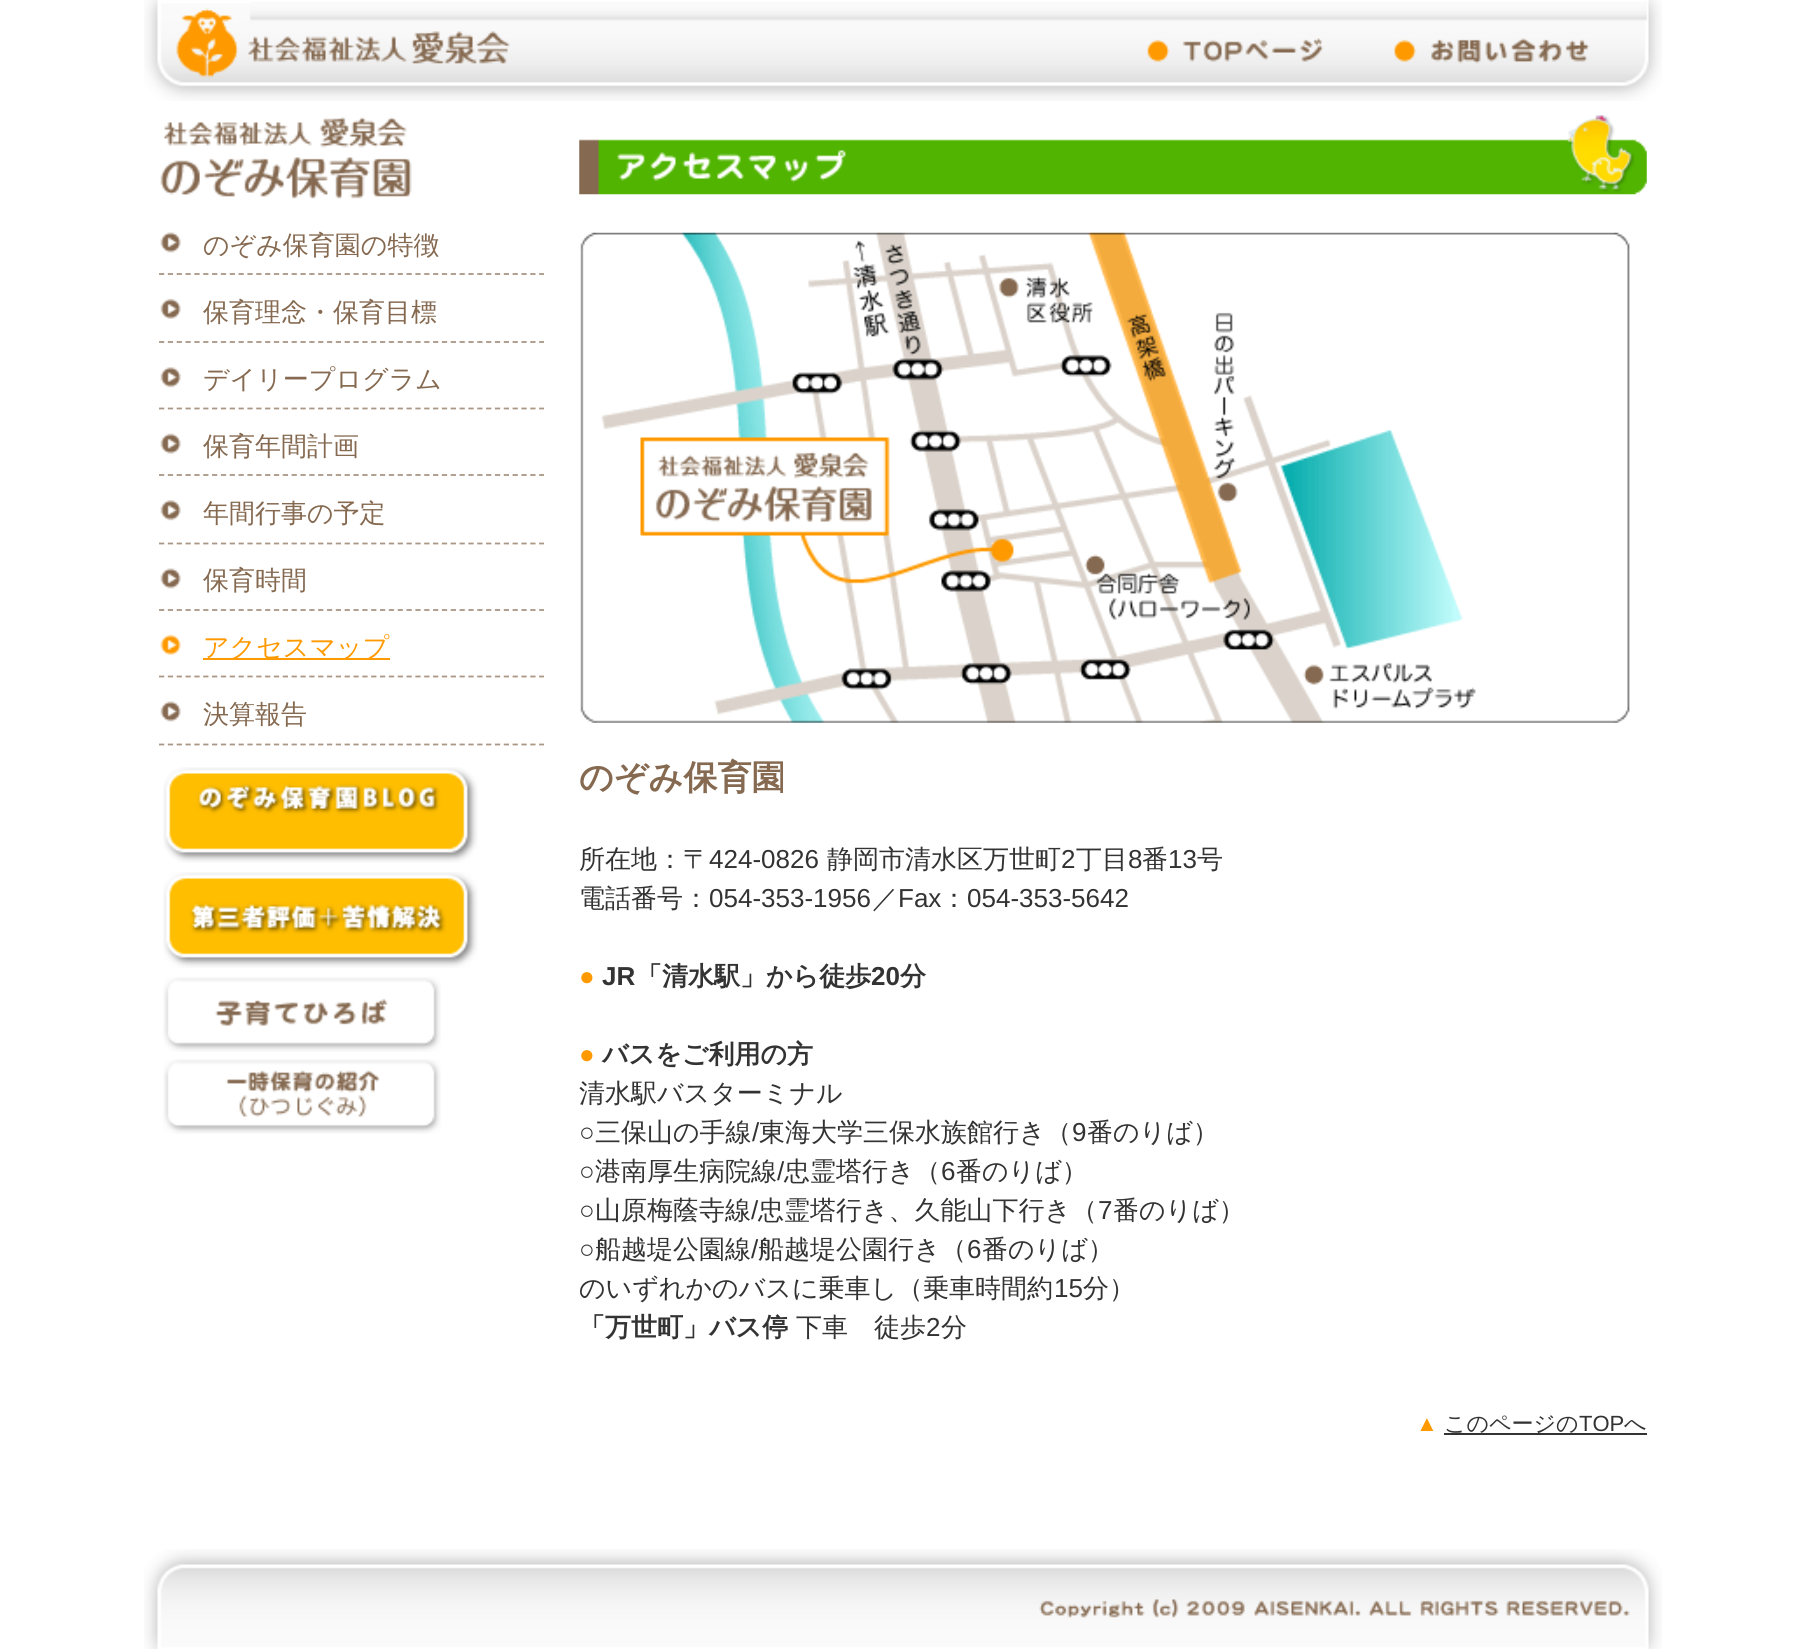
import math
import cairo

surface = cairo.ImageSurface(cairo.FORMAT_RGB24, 1805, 1649)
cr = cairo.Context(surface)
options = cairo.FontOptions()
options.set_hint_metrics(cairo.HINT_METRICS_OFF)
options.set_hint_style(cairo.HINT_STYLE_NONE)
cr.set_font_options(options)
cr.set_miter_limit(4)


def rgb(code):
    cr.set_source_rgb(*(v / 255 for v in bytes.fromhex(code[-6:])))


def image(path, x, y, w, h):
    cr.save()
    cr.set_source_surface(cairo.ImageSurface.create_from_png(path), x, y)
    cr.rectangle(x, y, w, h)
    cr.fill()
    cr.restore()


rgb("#ffffff")
cr.paint()
image("img/1.png", 144, 0, 1518, 101)
image("img/2.png", 1392, 38, 198, 26)
image("img/3.png", 160, 117, 252, 82)
cr.new_path()
cr.move_to(159, 274)
cr.line_to(544, 274)
rgb("#aa9785")
cr.set_line_width(1.8)
cr.set_dash([5.25, 3.59])
cr.stroke()
image("img/4.png", 160, 232, 21, 21)
cr.new_path()
cr.move_to(159, 342)
cr.line_to(544, 342)
cr.stroke()
image("img/5.png", 160, 298, 21, 21)
cr.new_path()
cr.move_to(159, 408.5)
cr.line_to(544, 408.5)
cr.stroke()
image("img/6.png", 160, 367, 21, 21)
cr.new_path()
cr.move_to(159, 475)
cr.line_to(544, 475)
cr.stroke()
image("img/7.png", 160, 433, 21, 21)
cr.new_path()
cr.move_to(159, 543.5)
cr.line_to(544, 543.5)
cr.stroke()
image("img/6.png", 160, 500, 21, 21)
cr.new_path()
cr.move_to(159, 610)
cr.line_to(544, 610)
cr.stroke()
image("img/4.png", 160, 568, 21, 21)
cr.new_path()
cr.move_to(159, 676.5)
cr.line_to(544, 676.5)
cr.stroke()
image("img/8.png", 160, 634, 21, 21)
rgb("#ff9900")
cr.rectangle(203, 658, 187, 2)
cr.fill()
cr.new_path()
cr.move_to(159, 744.5)
cr.line_to(544, 744.5)
rgb("#aa9785")
cr.stroke()
image("img/4.png", 160, 701, 21, 21)
image("img/9.png", 163, 767, 315, 96)
image("img/10.png", 163, 872, 315, 96)
image("img/11.png", 163, 977, 278, 75)
image("img/12.png", 163, 1059, 278, 75)
image("img/13.png", 579, 115, 1068, 80)
image("img/14.png", 580, 232, 1050, 491)
rgb("#333333")
cr.rectangle(1444, 1433, 203, 2)
cr.fill()
image("img/15.png", 144, 1549, 1518, 100)
cr.select_font_face("WenQuanYi Zen Hei Medium")
cr.set_font_size(26)
rgb("#856950")
for x, y, s in [
    (203, 254, "のぞみ保育園の特徴"),
    (203, 321, "保育理念・保育目標"),
    (203, 388, "デイリープログラム"),
    (203, 455, "保育年間計画"),
    (203, 522, "年間行事の予定"),
    (203, 589, "保育時間"),
]:
    cr.move_to(x, y)
    cr.show_text(s)
rgb("#ff9900")
cr.move_to(203, 656)
cr.show_text("アクセスマップ")
rgb("#856950")
cr.move_to(203, 723)
cr.show_text("決算報告")
cr.select_font_face("WenQuanYi Zen Hei", cairo.FONT_SLANT_NORMAL, cairo.FONT_WEIGHT_BOLD)
cr.set_font_size(34)
cr.move_to(579, 789)
cr.show_text("のぞみ保育園")
cr.select_font_face("WenQuanYi Zen Hei Medium")
cr.set_font_size(26)
rgb("#333333")
cr.move_to(579, 868)
cr.show_text("所在地：〒")
cr.select_font_face("Liberation Sans")
cr.move_to(709, 868)
cr.show_text("424-0826")
cr.select_font_face("WenQuanYi Zen Hei Medium")
cr.move_to(827, 868)
cr.show_text("静岡市清水区万世町")
cr.select_font_face("Liberation Sans")
cr.move_to(1061, 868)
cr.show_text("2")
cr.select_font_face("WenQuanYi Zen Hei Medium")
cr.move_to(1076, 868)
cr.show_text("丁目")
cr.select_font_face("Liberation Sans")
cr.move_to(1128, 868)
cr.show_text("8")
cr.select_font_face("WenQuanYi Zen Hei Medium")
cr.move_to(1142, 868)
cr.show_text("番")
cr.select_font_face("Liberation Sans")
cr.move_to(1168, 868)
cr.show_text("13")
cr.select_font_face("WenQuanYi Zen Hei Medium")
cr.move_to(1197, 868)
cr.show_text("号")
cr.move_to(579, 907)
cr.show_text("電話番号：")
cr.select_font_face("Liberation Sans")
cr.move_to(709, 907)
cr.show_text("054-353-1956")
cr.select_font_face("WenQuanYi Zen Hei Medium")
cr.move_to(872, 907)
cr.show_text("／")
cr.select_font_face("Liberation Sans")
cr.move_to(898, 907)
cr.show_text("Fax")
cr.select_font_face("WenQuanYi Zen Hei Medium")
cr.move_to(941, 907)
cr.show_text("：")
cr.select_font_face("Liberation Sans")
cr.move_to(967, 907)
cr.show_text("054-353-5642")
cr.select_font_face("Liberation Sans", cairo.FONT_SLANT_NORMAL, cairo.FONT_WEIGHT_BOLD)
rgb("#ff9900")
cr.move_to(579, 985)
cr.show_text("●")
rgb("#333333")
cr.move_to(602, 985)
cr.show_text("JR")
cr.select_font_face("WenQuanYi Zen Hei", cairo.FONT_SLANT_NORMAL, cairo.FONT_WEIGHT_BOLD)
cr.move_to(636, 985)
cr.show_text("「清水駅」から徒歩")
cr.select_font_face("Liberation Sans", cairo.FONT_SLANT_NORMAL, cairo.FONT_WEIGHT_BOLD)
cr.move_to(871, 985)
cr.show_text("20")
cr.select_font_face("WenQuanYi Zen Hei", cairo.FONT_SLANT_NORMAL, cairo.FONT_WEIGHT_BOLD)
cr.move_to(900, 985)
cr.show_text("分")
cr.select_font_face("Liberation Sans", cairo.FONT_SLANT_NORMAL, cairo.FONT_WEIGHT_BOLD)
rgb("#ff9900")
cr.move_to(579, 1063)
cr.show_text("●")
cr.select_font_face("WenQuanYi Zen Hei", cairo.FONT_SLANT_NORMAL, cairo.FONT_WEIGHT_BOLD)
rgb("#333333")
cr.move_to(602, 1063)
cr.show_text("バスをご利用の方")
cr.select_font_face("WenQuanYi Zen Hei Medium")
cr.move_to(579, 1102)
cr.show_text("清水駅バスターミナル")
cr.select_font_face("Liberation Sans")
cr.move_to(579, 1141)
cr.show_text("○")
cr.select_font_face("WenQuanYi Zen Hei Medium")
cr.move_to(595, 1141)
cr.show_text("三保山の手線")
cr.select_font_face("Liberation Sans")
cr.move_to(752, 1141)
cr.show_text("/")
cr.select_font_face("WenQuanYi Zen Hei Medium")
cr.move_to(759, 1141)
cr.show_text("東海大学三保水族館行き（")
cr.select_font_face("Liberation Sans")
cr.move_to(1072, 1141)
cr.show_text("9")
cr.select_font_face("WenQuanYi Zen Hei Medium")
cr.move_to(1087, 1141)
cr.show_text("番のりば）")
cr.select_font_face("Liberation Sans")
cr.move_to(579, 1180)
cr.show_text("○")
cr.select_font_face("WenQuanYi Zen Hei Medium")
cr.move_to(595, 1180)
cr.show_text("港南厚生病院線")
cr.select_font_face("Liberation Sans")
cr.move_to(777, 1180)
cr.show_text("/")
cr.select_font_face("WenQuanYi Zen Hei Medium")
cr.move_to(784, 1180)
cr.show_text("忠霊塔行き（")
cr.select_font_face("Liberation Sans")
cr.move_to(941, 1180)
cr.show_text("6")
cr.select_font_face("WenQuanYi Zen Hei Medium")
cr.move_to(956, 1180)
cr.show_text("番のりば）")
cr.select_font_face("Liberation Sans")
cr.move_to(579, 1219)
cr.show_text("○")
cr.select_font_face("WenQuanYi Zen Hei Medium")
cr.move_to(595, 1219)
cr.show_text("山原梅蔭寺線")
cr.select_font_face("Liberation Sans")
cr.move_to(751, 1219)
cr.show_text("/")
cr.select_font_face("WenQuanYi Zen Hei Medium")
cr.move_to(758, 1219)
cr.show_text("忠霊塔行き、久能山下行き（")
cr.select_font_face("Liberation Sans")
cr.move_to(1098, 1219)
cr.show_text("7")
cr.select_font_face("WenQuanYi Zen Hei Medium")
cr.move_to(1113, 1219)
cr.show_text("番のりば）")
cr.select_font_face("Liberation Sans")
cr.move_to(579, 1258)
cr.show_text("○")
cr.select_font_face("WenQuanYi Zen Hei Medium")
cr.move_to(595, 1258)
cr.show_text("船越堤公園線")
cr.select_font_face("Liberation Sans")
cr.move_to(751, 1258)
cr.show_text("/")
cr.select_font_face("WenQuanYi Zen Hei Medium")
cr.move_to(758, 1258)
cr.show_text("船越堤公園行き（")
cr.select_font_face("Liberation Sans")
cr.move_to(967, 1258)
cr.show_text("6")
cr.select_font_face("WenQuanYi Zen Hei Medium")
cr.move_to(982, 1258)
cr.show_text("番のりば）")
cr.move_to(579, 1297)
cr.show_text("のいずれかのバスに乗車し（乗車時間約")
cr.select_font_face("Liberation Sans")
cr.move_to(1054, 1297)
cr.show_text("15")
cr.select_font_face("WenQuanYi Zen Hei Medium")
cr.move_to(1083, 1297)
cr.show_text("分）")
cr.select_font_face("WenQuanYi Zen Hei", cairo.FONT_SLANT_NORMAL, cairo.FONT_WEIGHT_BOLD)
cr.move_to(579, 1336)
cr.show_text("「万世町」バス停")
cr.select_font_face("WenQuanYi Zen Hei Medium")
cr.move_to(796, 1336)
cr.show_text("下車　徒歩")
cr.select_font_face("Liberation Sans")
cr.move_to(926, 1336)
cr.show_text("2")
cr.select_font_face("WenQuanYi Zen Hei Medium")
cr.move_to(941, 1336)
cr.show_text("分")
cr.select_font_face("Liberation Sans")
cr.set_font_size(22)
rgb("#ff9900")
cr.move_to(1416, 1431)
cr.show_text("▲")
cr.select_font_face("WenQuanYi Zen Hei Medium")
rgb("#333333")
cr.move_to(1444, 1431)
cr.show_text("このページの")
cr.select_font_face("Liberation Sans")
cr.move_to(1579, 1431)
cr.show_text("TOP")
cr.select_font_face("WenQuanYi Zen Hei Medium")
cr.move_to(1624, 1431)
cr.show_text("へ")
surface.write_to_png("page.png")
